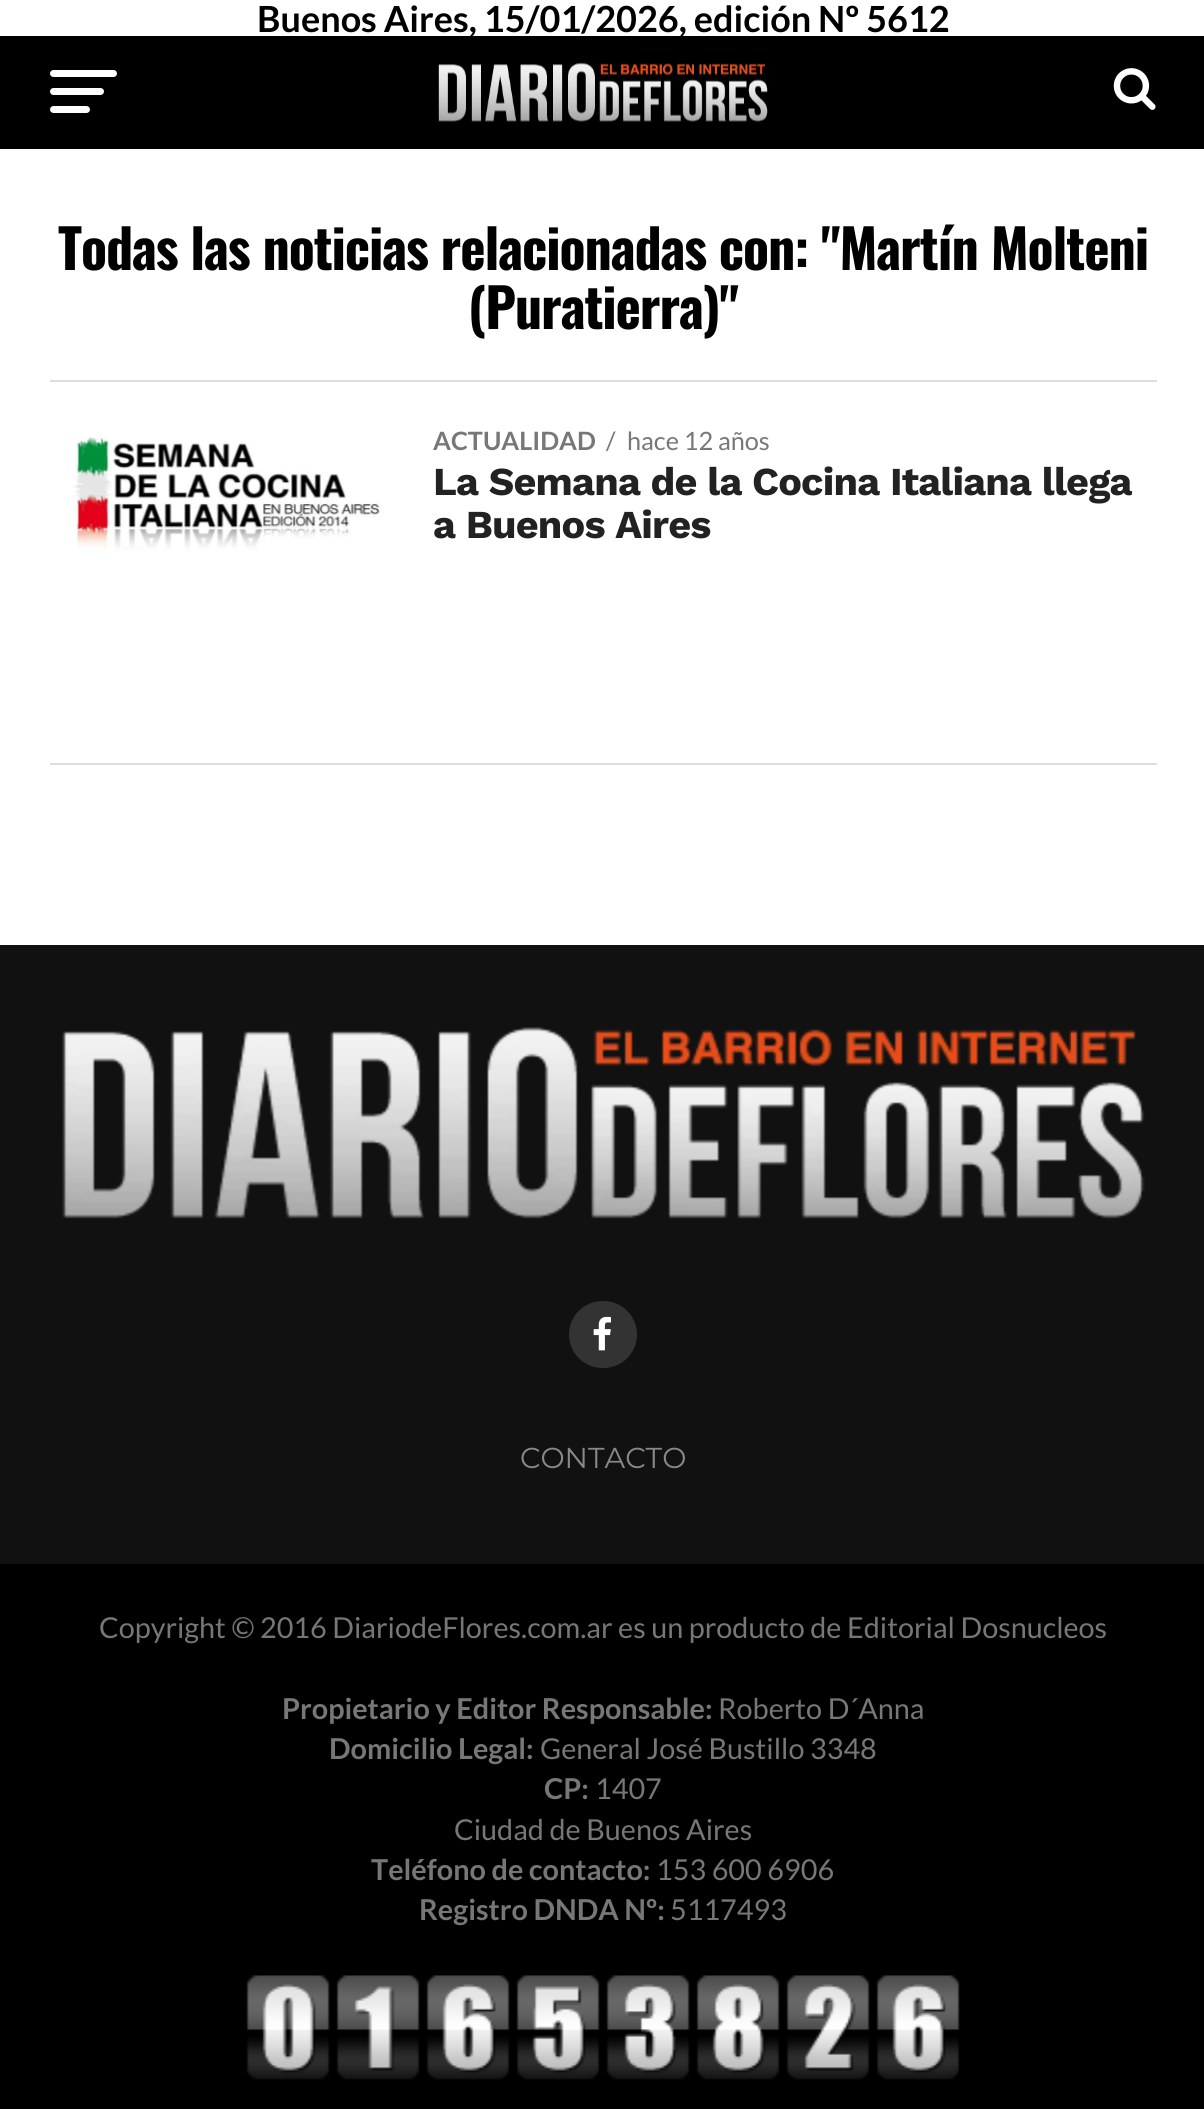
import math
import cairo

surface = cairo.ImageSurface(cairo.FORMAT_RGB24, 1204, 2109)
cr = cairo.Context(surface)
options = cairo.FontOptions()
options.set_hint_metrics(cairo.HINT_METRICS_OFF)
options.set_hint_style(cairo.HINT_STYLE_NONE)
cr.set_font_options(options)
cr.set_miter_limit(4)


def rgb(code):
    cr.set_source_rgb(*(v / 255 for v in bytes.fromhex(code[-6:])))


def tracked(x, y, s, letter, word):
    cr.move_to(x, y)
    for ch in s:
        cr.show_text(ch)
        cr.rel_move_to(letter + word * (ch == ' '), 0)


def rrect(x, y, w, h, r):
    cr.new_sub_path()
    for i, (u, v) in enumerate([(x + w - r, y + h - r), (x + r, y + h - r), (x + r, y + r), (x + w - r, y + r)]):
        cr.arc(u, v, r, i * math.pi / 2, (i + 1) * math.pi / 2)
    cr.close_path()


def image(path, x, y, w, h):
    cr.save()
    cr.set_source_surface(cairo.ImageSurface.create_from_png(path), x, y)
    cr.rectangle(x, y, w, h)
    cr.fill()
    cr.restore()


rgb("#ffffff")
cr.paint()
rgb("#000000")
cr.rectangle(0, 36, 1204, 113)
cr.fill()
rgb("#ffffff")
rrect(50, 70, 67, 7, 3.5)
cr.fill()
rrect(50, 88, 54, 7, 3.5)
cr.fill()
rrect(50, 106, 40, 7, 3.5)
cr.fill()
image("img/1.png", 438, 62, 330, 60)
image("img/2.png", 1113, 68, 43, 42)
rgb("#dddddd")
cr.rectangle(50, 380, 1107, 2)
cr.fill()
image("img/3.png", 50, 383, 337, 222)
cr.rectangle(50, 763, 1107, 2)
cr.fill()
rgb("#111111")
cr.rectangle(0, 945, 1204, 619)
cr.fill()
image("img/4.png", 62, 1027, 1083, 192)
rgb("#333333")
rrect(569, 1301, 68, 67, 33.5)
cr.fill()
image("img/5.png", 593, 1316, 18, 35)
rgb("#000000")
cr.rectangle(0, 1564, 1204, 545)
cr.fill()
image("img/6.png", 246, 1975, 714, 105)
cr.select_font_face("Lato", cairo.FONT_SLANT_NORMAL, cairo.FONT_WEIGHT_BOLD)
cr.set_font_size(36)
cr.move_to(257, 32)
cr.show_text("Buenos Aires, 15/01/2026, edición Nº 5612")
cr.select_font_face("Oswald", cairo.FONT_SLANT_NORMAL, cairo.FONT_WEIGHT_BOLD)
cr.set_font_size(54)
tracked(58, 270, "Todas las noticias relacionadas con: \"Martín Molteni", -1.08, 0)
tracked(468, 329, "(Puratierra)\"", -1.08, 0)
cr.select_font_face("Lato", cairo.FONT_SLANT_NORMAL, cairo.FONT_WEIGHT_BOLD)
cr.set_font_size(25.25)
rgb("#777777")
cr.move_to(433, 450)
cr.show_text("ACTUALIDAD")
cr.select_font_face("Lato")
cr.move_to(606, 450)
cr.show_text("/")
cr.move_to(627, 450)
cr.show_text("hace 12 años")
cr.select_font_face("Work Sans", cairo.FONT_SLANT_NORMAL, cairo.FONT_WEIGHT_BOLD)
cr.set_font_size(39.6)
rgb("#222222")
tracked(433, 495, "La Semana de la Cocina Italiana llega", -0.8, 0)
tracked(433, 538, "a Buenos Aires", -0.8, 0)
cr.select_font_face("Montserrat")
cr.set_font_size(28.8)
rgb("#888888")
cr.move_to(520, 1468)
cr.show_text("CONTACTO")
cr.select_font_face("Lato")
rgb("#777777")
cr.move_to(99, 1638)
cr.show_text("Copyright © 2016 DiariodeFlores.com.ar es un producto de Editorial Dosnucleos")
cr.select_font_face("Lato", cairo.FONT_SLANT_NORMAL, cairo.FONT_WEIGHT_BOLD)
cr.move_to(282, 1719)
cr.show_text("Propietario y Editor Responsable:")
cr.select_font_face("Lato")
cr.move_to(718, 1719)
cr.show_text("Roberto D´Anna")
cr.select_font_face("Lato", cairo.FONT_SLANT_NORMAL, cairo.FONT_WEIGHT_BOLD)
cr.move_to(329, 1759)
cr.show_text("Domicilio Legal:")
cr.select_font_face("Lato")
cr.move_to(540, 1759)
cr.show_text("General José Bustillo 3348")
cr.select_font_face("Lato", cairo.FONT_SLANT_NORMAL, cairo.FONT_WEIGHT_BOLD)
cr.move_to(544, 1799)
cr.show_text("CP:")
cr.select_font_face("Lato")
cr.move_to(595, 1799)
cr.show_text("1407")
cr.move_to(454, 1840)
cr.show_text("Ciudad de Buenos Aires")
cr.select_font_face("Lato", cairo.FONT_SLANT_NORMAL, cairo.FONT_WEIGHT_BOLD)
cr.move_to(371, 1880)
cr.show_text("Teléfono de contacto:")
cr.select_font_face("Lato")
cr.move_to(656, 1880)
cr.show_text("153 600 6906")
cr.select_font_face("Lato", cairo.FONT_SLANT_NORMAL, cairo.FONT_WEIGHT_BOLD)
cr.move_to(419, 1920)
cr.show_text("Registro DNDA Nº:")
cr.select_font_face("Lato")
cr.move_to(670, 1920)
cr.show_text("5117493")
surface.write_to_png("page.png")
